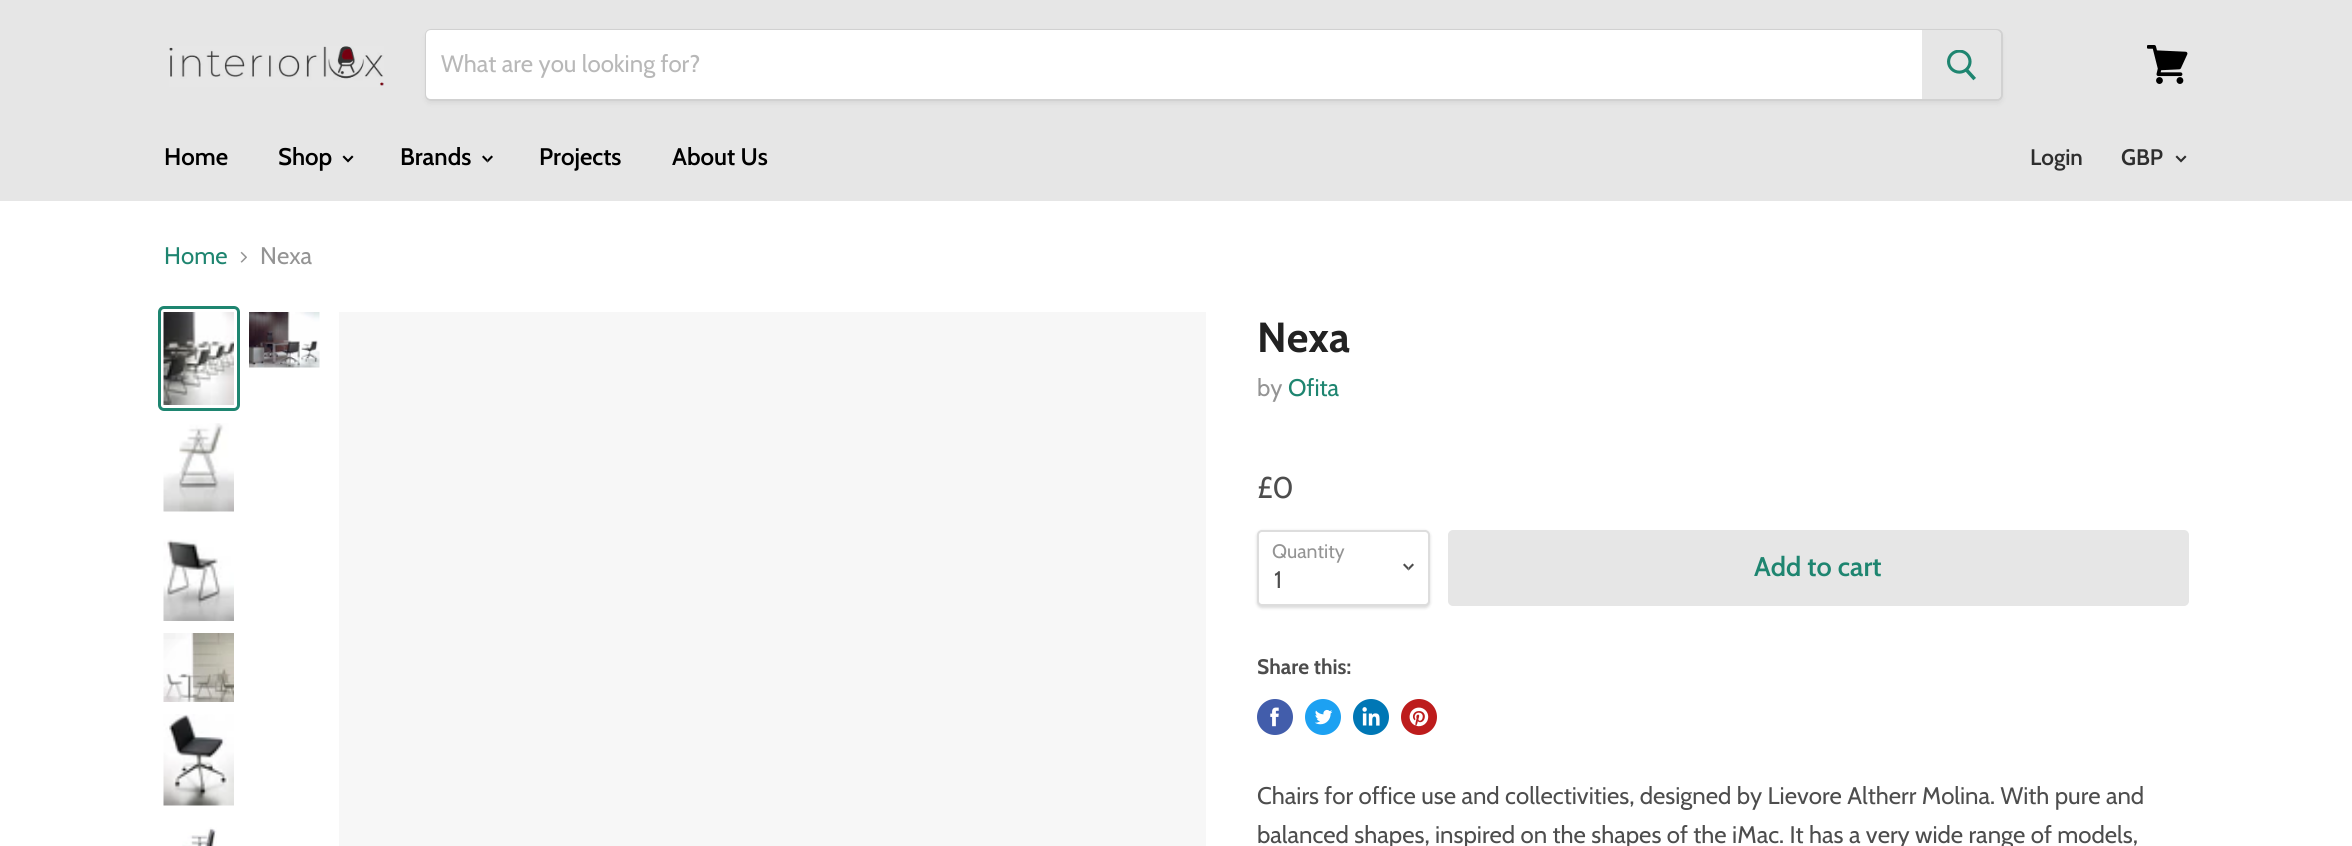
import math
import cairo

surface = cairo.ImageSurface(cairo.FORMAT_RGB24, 2352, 846)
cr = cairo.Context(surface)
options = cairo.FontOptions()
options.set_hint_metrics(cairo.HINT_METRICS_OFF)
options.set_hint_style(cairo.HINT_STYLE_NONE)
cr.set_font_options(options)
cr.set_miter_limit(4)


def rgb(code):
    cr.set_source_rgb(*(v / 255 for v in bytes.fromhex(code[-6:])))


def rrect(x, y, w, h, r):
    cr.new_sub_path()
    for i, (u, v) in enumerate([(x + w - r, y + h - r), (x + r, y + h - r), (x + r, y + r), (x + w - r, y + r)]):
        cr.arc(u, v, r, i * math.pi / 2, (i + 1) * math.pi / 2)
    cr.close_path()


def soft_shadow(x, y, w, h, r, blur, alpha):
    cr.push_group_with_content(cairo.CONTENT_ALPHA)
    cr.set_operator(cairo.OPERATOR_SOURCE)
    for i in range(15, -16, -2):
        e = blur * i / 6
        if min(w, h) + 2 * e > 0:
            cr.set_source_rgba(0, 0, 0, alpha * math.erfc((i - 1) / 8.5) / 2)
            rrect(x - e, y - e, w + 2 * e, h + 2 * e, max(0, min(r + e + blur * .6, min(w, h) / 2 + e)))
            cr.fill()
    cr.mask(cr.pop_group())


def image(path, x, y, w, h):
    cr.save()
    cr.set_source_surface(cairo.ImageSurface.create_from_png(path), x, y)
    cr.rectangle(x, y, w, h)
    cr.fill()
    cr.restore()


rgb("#ffffff")
cr.paint()
rgb("#e6e6e6")
cr.rectangle(0, 0, 2352, 201)
cr.fill()
image("img/1.png", 169, 46, 215, 41)
cr.save()
cr.set_fill_rule(cairo.FILL_RULE_EVEN_ODD)
cr.new_path()
cr.move_to(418, 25)
cr.line_to(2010, 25)
cr.line_to(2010, 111)
cr.line_to(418, 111)
cr.close_path()
cr.move_to(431, 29)
cr.line_to(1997, 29)
cr.curve_to(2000.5, 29, 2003, 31.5, 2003, 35)
cr.line_to(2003, 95)
cr.curve_to(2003, 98.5, 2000.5, 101, 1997, 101)
cr.line_to(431, 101)
cr.curve_to(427.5, 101, 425, 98.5, 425, 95)
cr.line_to(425, 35)
cr.curve_to(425, 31.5, 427.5, 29, 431, 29)
cr.close_path()
cr.clip()
rgb("#7f7f7f")
soft_shadow(425, 32, 1578, 72, 6, 2, 0.11)
cr.restore()
rrect(426, 30, 1576, 70, 5)
cr.set_source_rgba(0.498, 0.498, 0.498, 0.2)
cr.stroke()
rgb("#ffffff")
cr.new_path()
cr.move_to(431, 30)
cr.line_to(1922, 30)
cr.line_to(1922, 99)
cr.line_to(431, 99)
cr.curve_to(428, 99, 426, 97, 426, 94)
cr.line_to(426, 35)
cr.curve_to(426, 32, 428, 30, 431, 30)
cr.close_path()
cr.fill()
rgb("#e6e6e6")
cr.new_path()
cr.move_to(1923, 31)
cr.line_to(1996, 31)
cr.curve_to(1998, 31, 2000, 33, 2000, 35)
cr.line_to(2000, 94)
cr.curve_to(2000, 96, 1998, 98, 1996, 98)
cr.line_to(1923, 98)
cr.close_path()
cr.fill_preserve()
cr.stroke()
image("img/2.png", 1947, 50, 29, 31)
image("img/3.png", 2147, 45, 41, 39)
image("img/4.png", 342, 155, 12, 8)
image("img/5.png", 482, 155, 11, 8)
image("img/6.png", 2175, 155, 12, 8)
image("img/7.png", 240, 251, 7, 12)
rrect(159.5, 307.5, 79, 102, 4.5)
rgb("#1e8570")
cr.set_line_width(3)
cr.stroke()
image("img/8.png", 163, 312, 71, 93)
image("img/9.png", 249, 312, 71, 56)
image("img/10.png", 163, 423, 71, 89)
image("img/11.png", 163, 539, 71, 82)
image("img/12.png", 163, 633, 71, 69)
image("img/13.png", 163, 714, 71, 92)
image("img/14.png", 182, 827, 35, 19)
rgb("#f7f7f7")
cr.rectangle(339, 312, 867, 534)
cr.fill()
rgb("#000000")
soft_shadow(1257, 531, 173, 77, 5, 1.5, 0.15)
rgb("#ffffff")
rrect(1258, 531, 171, 74, 4)
cr.fill_preserve()
rgb("#dddddd")
cr.set_line_width(2)
cr.stroke()
image("img/15.png", 1403, 563, 11, 8)
rgb("#e6e6e6")
rrect(1449, 531, 739, 74, 4)
cr.fill_preserve()
cr.stroke()
rgb("#425dab")
cr.arc(1275, 717, 18, 0, 2 * math.pi)
cr.fill()
image("img/16.png", 1270, 707, 9, 20)
rgb("#1da1f2")
cr.arc(1323, 717, 18, 0, 2 * math.pi)
cr.fill()
image("img/17.png", 1315, 709, 18, 16)
rgb("#0077b5")
cr.arc(1371, 717, 18, 0, 2 * math.pi)
cr.fill()
image("img/18.png", 1362, 707, 18, 19)
rgb("#bd1c1c")
cr.arc(1419, 717, 18, 0, 2 * math.pi)
cr.fill()
image("img/19.png", 1409, 707, 20, 20)
cr.select_font_face("Cabin")
cr.set_font_size(24)
rgb("#b8b8b8")
cr.move_to(441, 72)
cr.show_text("What are you looking for?")
cr.select_font_face("Cabin SemiBold")
rgb("#000000")
for x, y, s in [
    (164, 165, "Home"),
    (278, 165, "Shop"),
    (400, 165, "Brands"),
    (539, 165, "Projects"),
    (672, 165, "About Us"),
]:
    cr.move_to(x, y)
    cr.show_text(s)
cr.set_font_size(22.5)
rgb("#2e2e2e")
cr.move_to(2030, 165)
cr.show_text("Login")
cr.move_to(2121, 165)
cr.show_text("GBP")
cr.select_font_face("Cabin")
cr.set_font_size(24)
rgb("#1e8570")
cr.move_to(164, 264)
cr.show_text("Home")
rgb("#949494")
cr.move_to(260, 264)
cr.show_text("Nexa")
cr.select_font_face("Cabin", cairo.FONT_SLANT_NORMAL, cairo.FONT_WEIGHT_BOLD)
cr.set_font_size(42)
rgb("#222222")
cr.move_to(1257, 352)
cr.show_text("Nexa")
cr.select_font_face("Cabin")
cr.set_font_size(24)
rgb("#949494")
cr.move_to(1257, 396)
cr.show_text("by")
rgb("#1e8570")
cr.move_to(1288, 396)
cr.show_text("Ofita")
cr.set_font_size(30)
rgb("#4d4d4d")
cr.move_to(1257, 498)
cr.show_text("£0")
cr.set_font_size(19.5)
rgb("#949494")
cr.move_to(1272, 558)
cr.show_text("Quantity")
cr.set_font_size(24)
rgb("#4d4d4d")
cr.move_to(1274, 588)
cr.show_text("1")
cr.select_font_face("Cabin SemiBold")
cr.set_font_size(27)
rgb("#1e8570")
cr.move_to(1754, 576)
cr.show_text("Add to cart")
cr.select_font_face("Cabin", cairo.FONT_SLANT_NORMAL, cairo.FONT_WEIGHT_BOLD)
cr.set_font_size(21)
rgb("#4d4d4d")
cr.move_to(1257, 674)
cr.show_text("Share this:")
cr.select_font_face("Cabin")
cr.set_font_size(24)
cr.move_to(1257, 804)
cr.show_text("Chairs for office use and collectivities, designed by Lievore Altherr Molina. With pure and")
cr.move_to(1257, 843)
cr.show_text("balanced shapes, inspired on the shapes of the iMac. It has a very wide range of models,")
surface.write_to_png("page.png")
